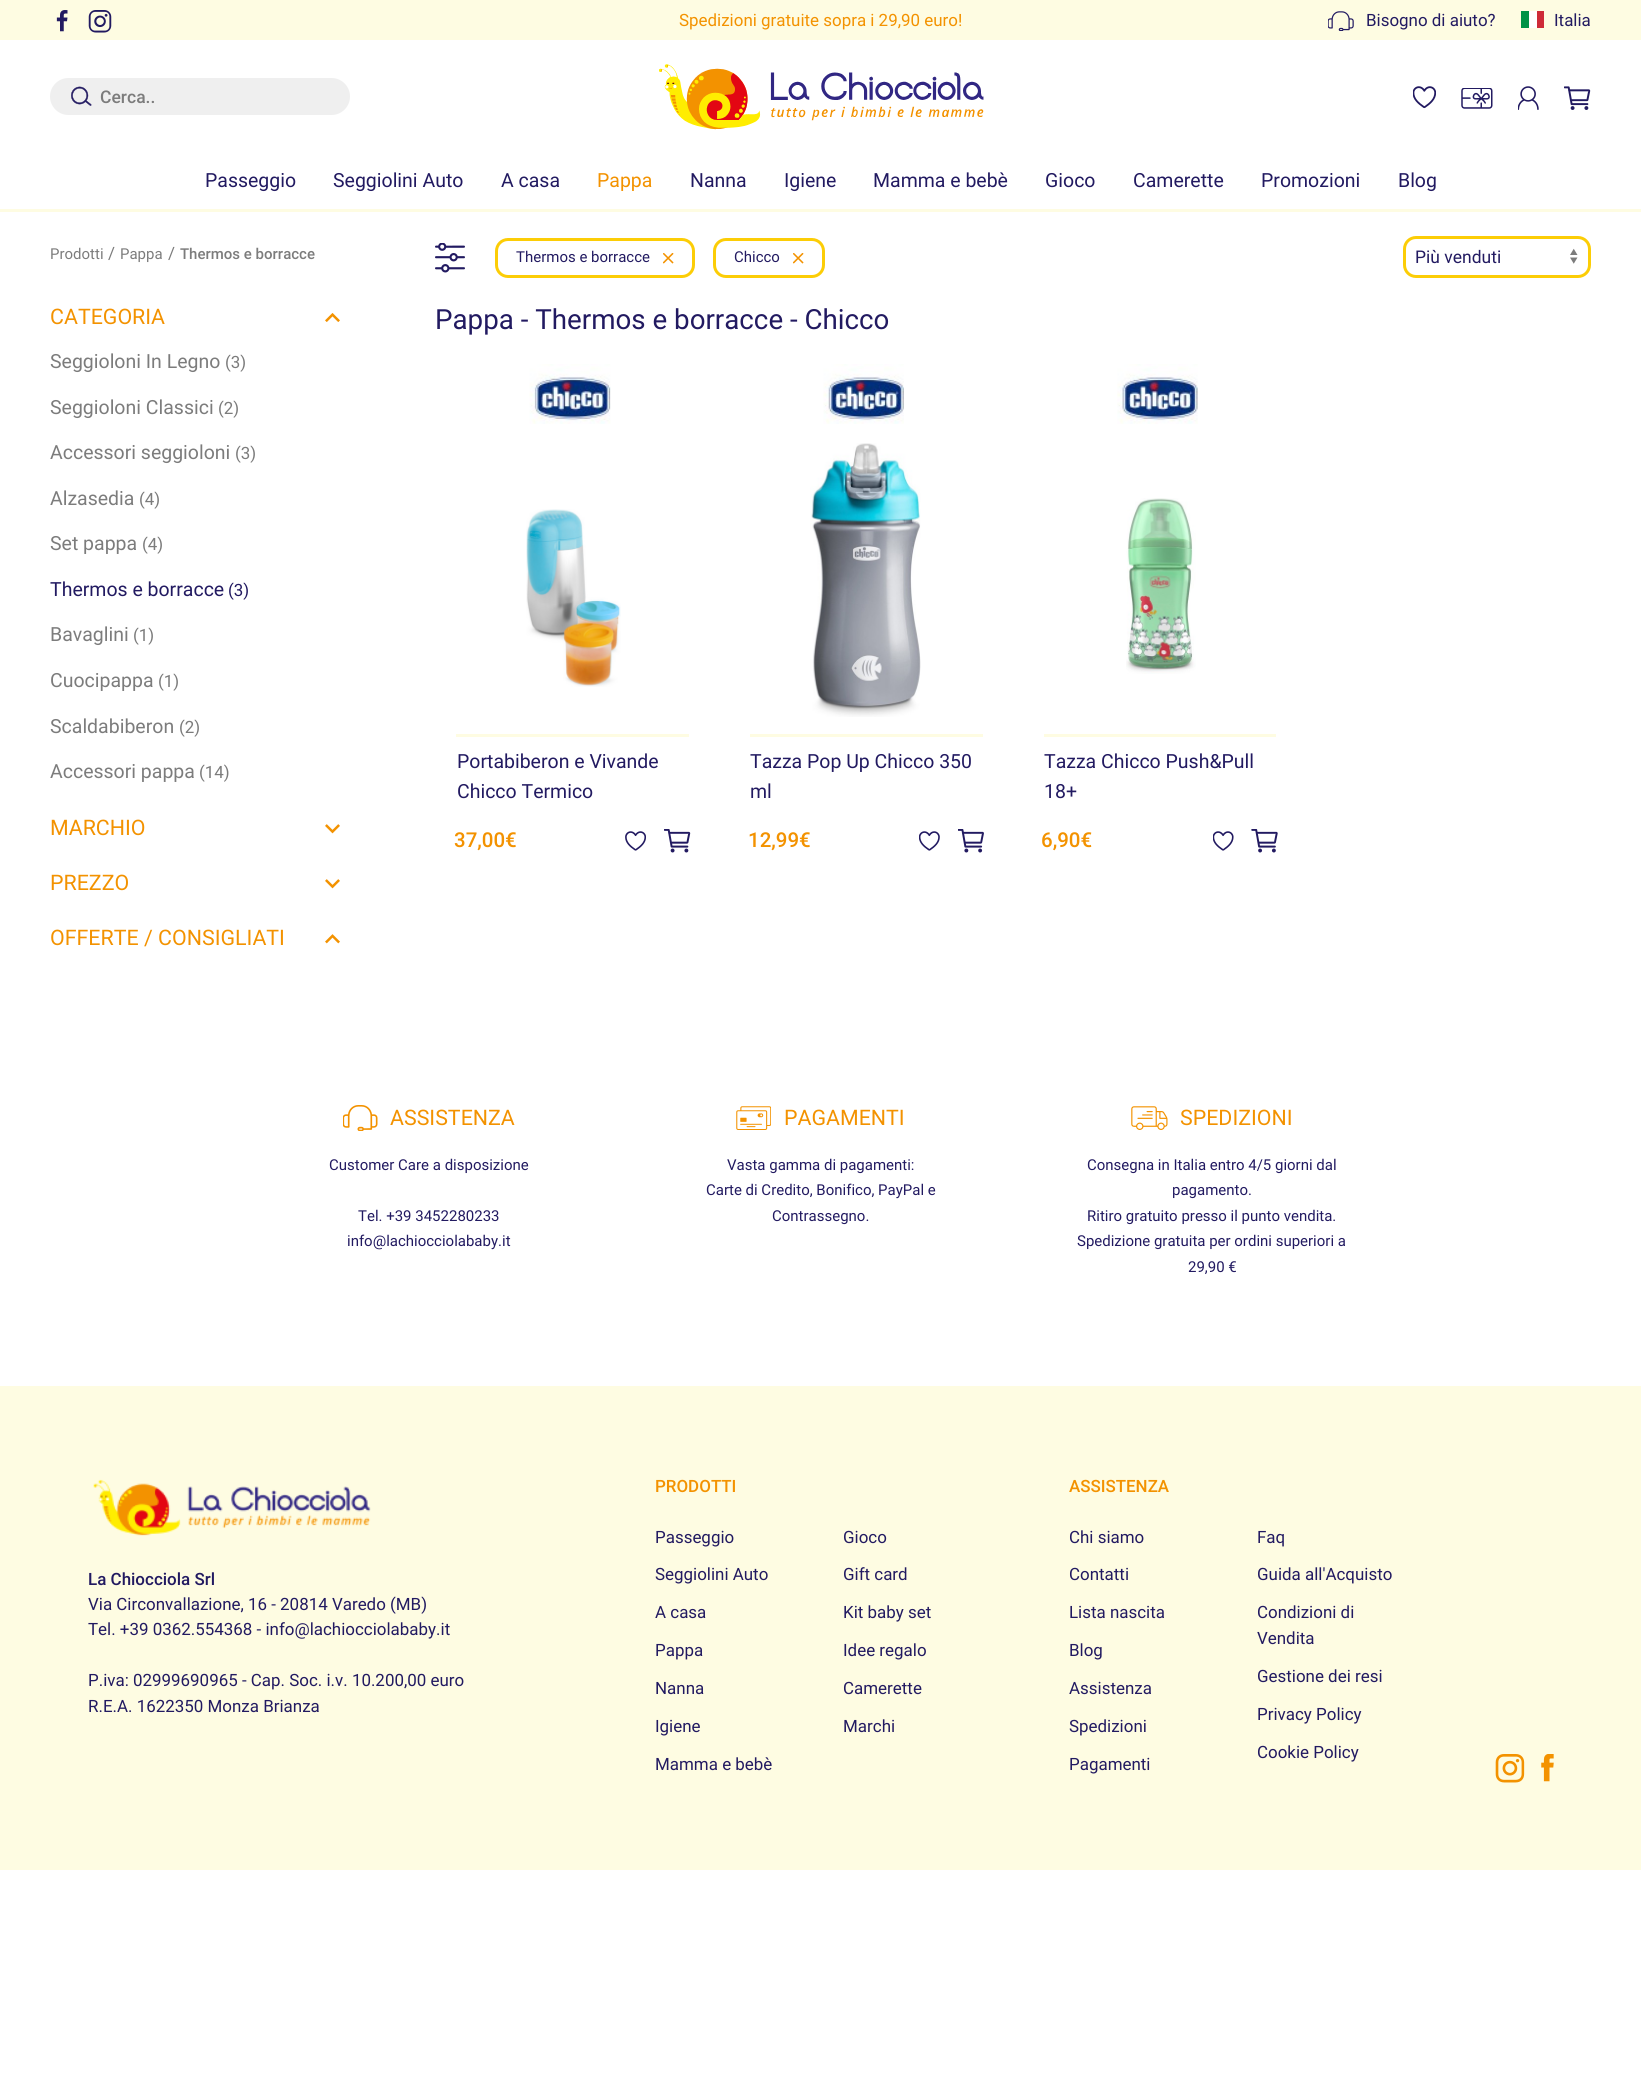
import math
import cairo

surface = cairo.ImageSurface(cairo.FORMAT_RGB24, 1641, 2081)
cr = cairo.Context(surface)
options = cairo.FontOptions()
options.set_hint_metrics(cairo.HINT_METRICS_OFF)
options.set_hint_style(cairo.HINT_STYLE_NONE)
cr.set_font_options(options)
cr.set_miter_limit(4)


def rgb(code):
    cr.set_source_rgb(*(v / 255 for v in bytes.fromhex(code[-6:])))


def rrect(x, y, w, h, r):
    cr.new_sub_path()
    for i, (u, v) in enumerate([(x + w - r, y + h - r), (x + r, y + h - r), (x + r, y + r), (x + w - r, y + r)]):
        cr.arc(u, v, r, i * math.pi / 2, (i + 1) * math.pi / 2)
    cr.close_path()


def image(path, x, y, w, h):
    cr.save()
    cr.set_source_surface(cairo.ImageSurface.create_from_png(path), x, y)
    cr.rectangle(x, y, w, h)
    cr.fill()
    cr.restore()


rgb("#ffffff")
cr.paint()
rgb("#fefce2")
cr.rectangle(0, 0, 1641, 40)
cr.fill()
image("img/1.png", 56, 10, 12, 22)
image("img/2.png", 88, 10, 24, 23)
image("img/3.png", 1328, 11, 26, 20)
for x, y, w, h, color in [
    (1529, 11, 8, 17, "#ffffff"),
    (1521, 11, 8, 17, "#009246"),
    (1537, 11, 7, 17, "#ce2b37"),
]:
    rgb(color)
    cr.rectangle(x, y, w, h)
    cr.fill()
rgb("#efefef")
rrect(50, 78, 300, 37, 18.5)
cr.fill()
image("img/4.png", 71, 86, 21, 20)
image("img/5.png", 659, 64, 325, 66)
image("img/6.png", 1413, 86, 23, 23)
image("img/7.png", 1461, 88, 32, 21)
image("img/8.png", 1518, 86, 21, 24)
image("img/9.png", 1564, 86, 27, 24)
rgb("#fefce2")
cr.rectangle(0, 209, 1641, 3)
cr.fill()
image("img/10.png", 435, 243, 30, 30)
rrect(496.5, 239.5, 197, 37, 11.5)
rgb("#fccd06")
cr.set_line_width(3)
cr.stroke()
image("img/11.png", 663, 253, 11, 11)
rrect(714.5, 239.5, 109, 37, 11.5)
cr.stroke()
image("img/11.png", 793, 253, 11, 11)
image("img/12.png", 1570, 248, 8, 16)
rrect(1404.5, 237.5, 185, 39, 11.5)
cr.stroke()
image("img/13.png", 325, 313, 15, 9)
image("img/14.png", 325, 824, 15, 10)
image("img/14.png", 325, 879, 15, 10)
image("img/15.png", 325, 934, 15, 10)
image("img/16.png", 529, 364, 82, 60)
image("img/17.png", 526, 509, 95, 178)
rgb("#fefce2")
cr.rectangle(456, 734, 233, 3)
cr.fill()
image("img/18.png", 625, 831, 21, 20)
image("img/19.png", 664, 829, 27, 24)
image("img/20.png", 823, 364, 81, 60)
image("img/21.png", 810, 443, 111, 274)
cr.rectangle(750, 734, 233, 3)
cr.fill()
image("img/22.png", 919, 831, 21, 20)
image("img/23.png", 958, 829, 26, 24)
image("img/24.png", 1117, 364, 81, 60)
image("img/25.png", 1126, 498, 70, 176)
cr.rectangle(1044, 734, 232, 3)
cr.fill()
image("img/26.png", 1213, 831, 21, 20)
image("img/27.png", 1251, 829, 27, 24)
image("img/28.png", 343, 1105, 35, 26)
image("img/29.png", 736, 1106, 35, 24)
image("img/30.png", 1131, 1106, 37, 24)
cr.rectangle(0, 1386, 1641, 484)
cr.fill()
image("img/31.png", 93, 1479, 278, 57)
image("img/32.png", 1495, 1754, 30, 29)
image("img/33.png", 1541, 1754, 13, 28)
cr.select_font_face("Roboto")
cr.set_font_size(16.95)
rgb("#f39200")
cr.move_to(679, 26)
cr.show_text("Spedizioni gratuite sopra i 29,90 euro!")
rgb("#221a61")
cr.move_to(1366, 26)
cr.show_text("Bisogno di aiuto?")
cr.move_to(1554, 26)
cr.show_text("Italia")
cr.select_font_face("Roboto Medium")
cr.set_font_size(17.5)
rgb("#7c7c7c")
cr.move_to(100, 103)
cr.show_text("Cerca..")
cr.select_font_face("Roboto")
cr.set_font_size(19.5)
rgb("#221a61")
for x, y, s in [
    (205, 187, "Passeggio"),
    (333, 187, "Seggiolini Auto"),
    (501, 187, "A casa"),
]:
    cr.move_to(x, y)
    cr.show_text(s)
rgb("#f39200")
cr.move_to(597, 187)
cr.show_text("Pappa")
rgb("#221a61")
for x, y, s in [
    (690, 187, "Nanna"),
    (784, 187, "Igiene"),
    (873, 187, "Mamma e bebè"),
    (1045, 187, "Gioco"),
    (1133, 187, "Camerette"),
    (1261, 187, "Promozioni"),
    (1398, 187, "Blog"),
]:
    cr.move_to(x, y)
    cr.show_text(s)
cr.set_font_size(15)
rgb("#7c7c7c")
cr.move_to(50, 259)
cr.show_text("Prodotti")
cr.set_font_size(17)
cr.move_to(108, 259)
cr.show_text("/")
cr.set_font_size(15)
cr.move_to(120, 259)
cr.show_text("Pappa")
cr.set_font_size(17)
cr.move_to(168, 259)
cr.show_text("/")
cr.select_font_face("Roboto Medium")
cr.set_font_size(15)
cr.move_to(180, 259)
cr.show_text("Thermos e borracce")
cr.select_font_face("Roboto")
rgb("#221a61")
cr.move_to(516, 262)
cr.show_text("Thermos e borracce")
cr.move_to(734, 262)
cr.show_text("Chicco")
cr.set_font_size(17.5)
cr.move_to(1415, 263)
cr.show_text("Più venduti")
cr.set_font_size(21.4)
rgb("#f39200")
cr.move_to(50, 324)
cr.show_text("CATEGORIA")
cr.set_font_size(19.5)
rgb("#7c7c7c")
cr.move_to(50, 368)
cr.show_text("Seggioloni In Legno")
cr.set_font_size(16.95)
cr.move_to(225, 368)
cr.show_text("(3)")
cr.set_font_size(19.5)
cr.move_to(50, 414)
cr.show_text("Seggioloni Classici")
cr.set_font_size(16.95)
cr.move_to(218, 414)
cr.show_text("(2)")
cr.set_font_size(19.5)
cr.move_to(50, 459)
cr.show_text("Accessori seggioloni")
cr.set_font_size(16.95)
cr.move_to(235, 459)
cr.show_text("(3)")
cr.set_font_size(19.5)
cr.move_to(50, 505)
cr.show_text("Alzasedia")
cr.set_font_size(16.95)
cr.move_to(139, 505)
cr.show_text("(4)")
cr.set_font_size(19.5)
cr.move_to(50, 550)
cr.show_text("Set pappa")
cr.set_font_size(16.95)
cr.move_to(142, 550)
cr.show_text("(4)")
cr.set_font_size(19.5)
rgb("#221a61")
cr.move_to(50, 596)
cr.show_text("Thermos e borracce")
cr.set_font_size(16.95)
cr.move_to(228, 596)
cr.show_text("(3)")
cr.set_font_size(19.5)
rgb("#7c7c7c")
cr.move_to(50, 641)
cr.show_text("Bavaglini")
cr.set_font_size(16.95)
cr.move_to(133, 641)
cr.show_text("(1)")
cr.set_font_size(19.5)
cr.move_to(50, 687)
cr.show_text("Cuocipappa")
cr.set_font_size(16.95)
cr.move_to(158, 687)
cr.show_text("(1)")
cr.set_font_size(19.5)
cr.move_to(50, 733)
cr.show_text("Scaldabiberon")
cr.set_font_size(16.95)
cr.move_to(179, 733)
cr.show_text("(2)")
cr.set_font_size(19.5)
cr.move_to(50, 778)
cr.show_text("Accessori pappa")
cr.set_font_size(16.95)
cr.move_to(199, 778)
cr.show_text("(14)")
cr.set_font_size(21.4)
rgb("#f39200")
for x, y, s in [
    (50, 835, "MARCHIO"),
    (50, 890, "PREZZO"),
    (50, 945, "OFFERTE / CONSIGLIATI"),
]:
    cr.move_to(x, y)
    cr.show_text(s)
cr.set_font_size(27.75)
rgb("#221a61")
cr.move_to(435, 329)
cr.show_text("Pappa - Thermos e borracce - Chicco")
cr.set_font_size(19.5)
cr.move_to(457, 768)
cr.show_text("Portabiberon e Vivande")
cr.move_to(457, 798)
cr.show_text("Chicco Termico")
cr.select_font_face("Roboto Medium")
cr.set_font_size(20.5)
rgb("#f39200")
cr.move_to(454, 847)
cr.show_text("37,00€")
cr.select_font_face("Roboto")
cr.set_font_size(19.5)
rgb("#221a61")
cr.move_to(750, 768)
cr.show_text("Tazza Pop Up Chicco 350")
cr.move_to(750, 798)
cr.show_text("ml")
cr.select_font_face("Roboto Medium")
cr.set_font_size(20.5)
rgb("#f39200")
cr.move_to(748, 847)
cr.show_text("12,99€")
cr.select_font_face("Roboto")
cr.set_font_size(19.5)
rgb("#221a61")
cr.move_to(1044, 768)
cr.show_text("Tazza Chicco Push&Pull")
cr.move_to(1044, 798)
cr.show_text("18+")
cr.select_font_face("Roboto Medium")
cr.set_font_size(20.5)
rgb("#f39200")
cr.move_to(1041, 847)
cr.show_text("6,90€")
cr.select_font_face("Roboto")
cr.set_font_size(21.4)
cr.move_to(390, 1125)
cr.show_text("ASSISTENZA")
cr.set_font_size(15)
rgb("#221a61")
for x, y, s in [
    (329, 1170, "Customer Care a disposizione"),
    (358, 1221, "Tel. +39 3452280233"),
    (347, 1246, "info@lachiocciolababy.it"),
]:
    cr.move_to(x, y)
    cr.show_text(s)
cr.set_font_size(21.4)
rgb("#f39200")
cr.move_to(784, 1125)
cr.show_text("PAGAMENTI")
cr.set_font_size(15)
rgb("#221a61")
for x, y, s in [
    (727, 1170, "Vasta gamma di pagamenti:"),
    (706, 1195, "Carte di Credito, Bonifico, PayPal e"),
    (772, 1221, "Contrassegno."),
]:
    cr.move_to(x, y)
    cr.show_text(s)
cr.set_font_size(21.4)
rgb("#f39200")
cr.move_to(1180, 1125)
cr.show_text("SPEDIZIONI")
cr.set_font_size(15)
rgb("#221a61")
for x, y, s in [
    (1087, 1170, "Consegna in Italia entro 4/5 giorni dal"),
    (1172, 1195, "pagamento."),
    (1087, 1221, "Ritiro gratuito presso il punto vendita."),
    (1077, 1246, "Spedizione gratuita per ordini superiori a"),
    (1188, 1272, "29,90 €"),
]:
    cr.move_to(x, y)
    cr.show_text(s)
cr.select_font_face("Roboto Medium")
cr.set_font_size(16.95)
cr.move_to(88, 1585)
cr.show_text("La Chiocciola Srl")
cr.select_font_face("Roboto")
for x, y, s in [
    (88, 1610, "Via Circonvallazione, 16 - 20814 Varedo (MB)"),
    (88, 1635, "Tel. +39 0362.554368 - info@lachiocciolababy.it"),
    (88, 1686, "P.iva: 02999690965 - Cap. Soc. i.v. 10.200,00 euro"),
    (88, 1712, "R.E.A. 1622350 Monza Brianza"),
]:
    cr.move_to(x, y)
    cr.show_text(s)
cr.select_font_face("Roboto Medium")
rgb("#f39200")
cr.move_to(655, 1492)
cr.show_text("PRODOTTI")
cr.select_font_face("Roboto")
rgb("#221a61")
for x, y, s in [
    (655, 1543, "Passeggio"),
    (843, 1543, "Gioco"),
    (655, 1580, "Seggiolini Auto"),
    (843, 1580, "Gift card"),
    (655, 1618, "A casa"),
    (843, 1618, "Kit baby set"),
    (655, 1656, "Pappa"),
    (843, 1656, "Idee regalo"),
    (655, 1694, "Nanna"),
    (843, 1694, "Camerette"),
    (655, 1732, "Igiene"),
    (843, 1732, "Marchi"),
    (655, 1770, "Mamma e bebè"),
]:
    cr.move_to(x, y)
    cr.show_text(s)
cr.select_font_face("Roboto Medium")
rgb("#f39200")
cr.move_to(1069, 1492)
cr.show_text("ASSISTENZA")
cr.select_font_face("Roboto")
rgb("#221a61")
for x, y, s in [
    (1069, 1543, "Chi siamo"),
    (1257, 1543, "Faq"),
    (1069, 1580, "Contatti"),
    (1257, 1580, "Guida all'Acquisto"),
    (1069, 1618, "Lista nascita"),
    (1257, 1618, "Condizioni di"),
    (1257, 1644, "Vendita"),
    (1069, 1656, "Blog"),
    (1257, 1682, "Gestione dei resi"),
    (1069, 1694, "Assistenza"),
    (1257, 1720, "Privacy Policy"),
    (1069, 1732, "Spedizioni"),
    (1257, 1758, "Cookie Policy"),
    (1069, 1770, "Pagamenti"),
]:
    cr.move_to(x, y)
    cr.show_text(s)
surface.write_to_png("page.png")
